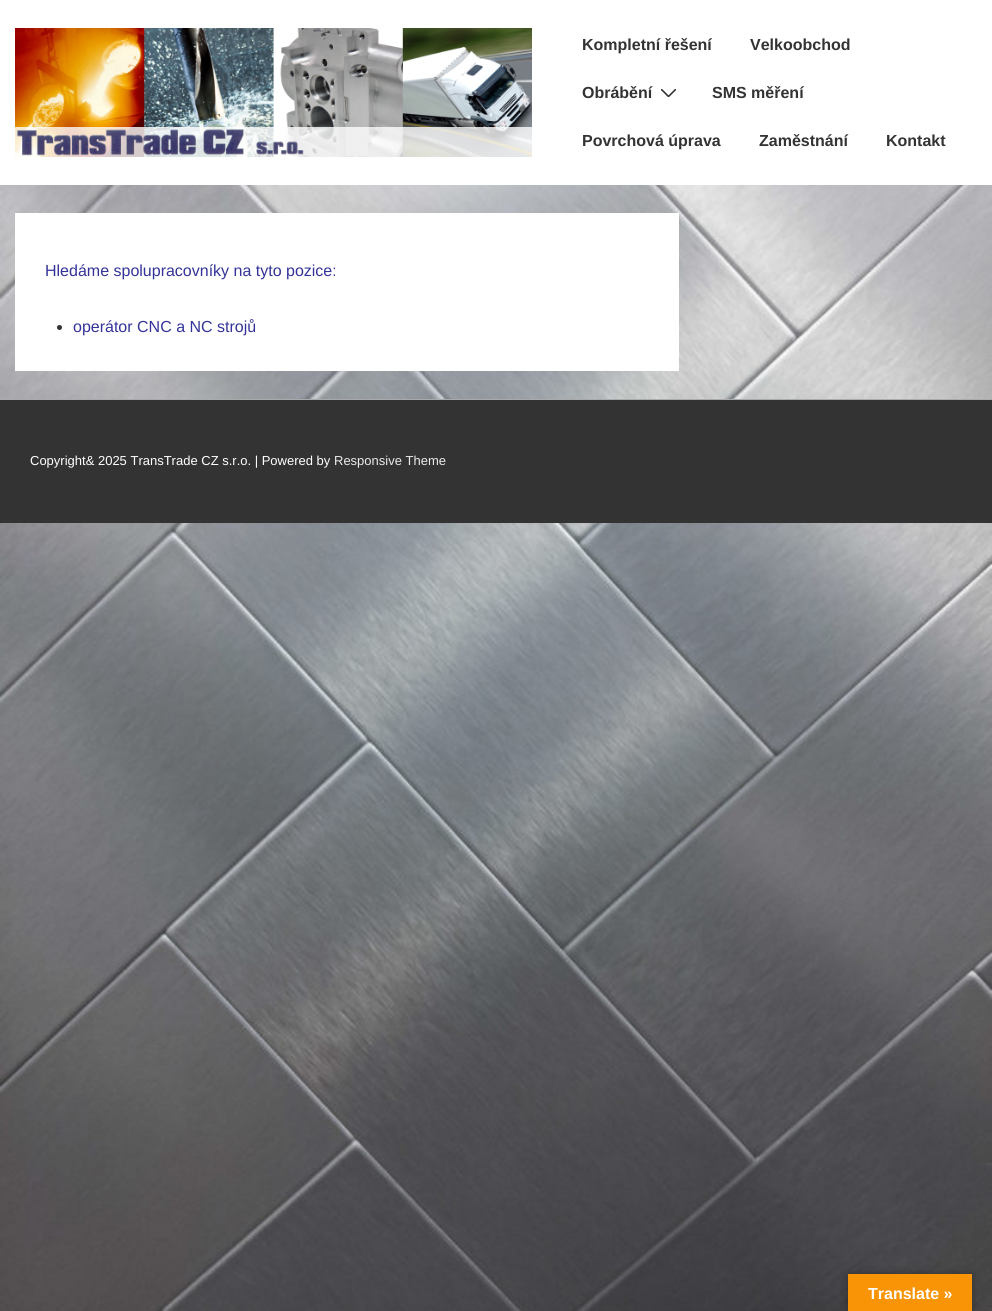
import math
import cairo

surface = cairo.ImageSurface(cairo.FORMAT_RGB24, 992, 1311)
cr = cairo.Context(surface)
options = cairo.FontOptions()
options.set_hint_metrics(cairo.HINT_METRICS_OFF)
options.set_hint_style(cairo.HINT_STYLE_NONE)
cr.set_font_options(options)
cr.set_miter_limit(4)


def rgb(code):
    cr.set_source_rgb(*(v / 255 for v in bytes.fromhex(code[-6:])))


def rrect(x, y, w, h, r):
    cr.new_sub_path()
    for i, (u, v) in enumerate([(x + w - r, y + h - r), (x + r, y + h - r), (x + r, y + r), (x + w - r, y + r)]):
        cr.arc(u, v, r, i * math.pi / 2, (i + 1) * math.pi / 2)
    cr.close_path()


def soft_shadow(x, y, w, h, r, blur, alpha):
    cr.push_group_with_content(cairo.CONTENT_ALPHA)
    cr.set_operator(cairo.OPERATOR_SOURCE)
    for i in range(15, -16, -2):
        e = blur * i / 6
        if min(w, h) + 2 * e > 0:
            cr.set_source_rgba(0, 0, 0, alpha * math.erfc((i - 1) / 8.5) / 2)
            rrect(x - e, y - e, w + 2 * e, h + 2 * e, max(0, min(r + e + blur * .6, min(w, h) / 2 + e)))
            cr.fill()
    cr.mask(cr.pop_group())


def image(path, x, y, w, h):
    cr.save()
    cr.set_source_surface(cairo.ImageSurface.create_from_png(path), x, y)
    cr.rectangle(x, y, w, h)
    cr.fill()
    cr.restore()


rgb("#ffffff")
cr.paint()
image("img/1.png", 0, 185, 992, 1126)
image("img/2.png", 15, 28, 517, 129)
cr.save()
cr.rectangle(661, 89, 15, 8)
cr.clip()
cr.new_path()
cr.move_to(661.5, 89.5)
cr.line_to(668.5, 96.5)
cr.line_to(675.5, 89.5)
rgb("#333333")
cr.set_line_width(1.6)
cr.set_line_cap(cairo.LINE_CAP_ROUND)
cr.stroke()
cr.restore()
rgb("#ffffff")
cr.rectangle(15, 213, 664, 158)
cr.fill()
rgb("#333333")
cr.arc(59.5, 327.5, 2.5, 0, 2 * math.pi)
cr.fill()
cr.rectangle(0, 400, 992, 123)
cr.fill()
rgb("#aaaaaa")
cr.rectangle(0, 399, 992, 1)
cr.fill()
rgb("#000000")
soft_shadow(848, 1274, 124, 37, 0, 4.5, 0.3)
rgb("#f89406")
cr.rectangle(848, 1274, 124, 37)
cr.fill()
cr.select_font_face("Liberation Sans", cairo.FONT_SLANT_NORMAL, cairo.FONT_WEIGHT_BOLD)
cr.set_font_size(16)
rgb("#333333")
for x, y, s in [
    (582, 50, "Kompletní řešení"),
    (750, 50, "Velkoobchod"),
    (582, 98, "Obrábění"),
    (712, 98, "SMS měření"),
    (582, 146, "Povrchová úprava"),
    (759, 146, "Zaměstnání"),
    (886, 146, "Kontakt"),
]:
    cr.move_to(x, y)
    cr.show_text(s)
cr.select_font_face("Liberation Sans")
rgb("#333399")
cr.move_to(45, 276)
cr.show_text("Hledáme spolupracovníky na tyto pozice:")
cr.move_to(73, 332)
cr.show_text("operátor CNC a NC strojů")
cr.set_font_size(13)
rgb("#ffffff")
cr.move_to(30, 465)
cr.show_text("Copyright& 2025 TransTrade CZ s.r.o. | Powered by")
rgb("#eaeaea")
cr.move_to(334, 465)
cr.show_text("Responsive Theme")
cr.select_font_face("Liberation Sans", cairo.FONT_SLANT_NORMAL, cairo.FONT_WEIGHT_BOLD)
cr.set_font_size(16)
rgb("#ffffff")
cr.move_to(868, 1299)
cr.show_text("Translate »")
surface.write_to_png("page.png")
